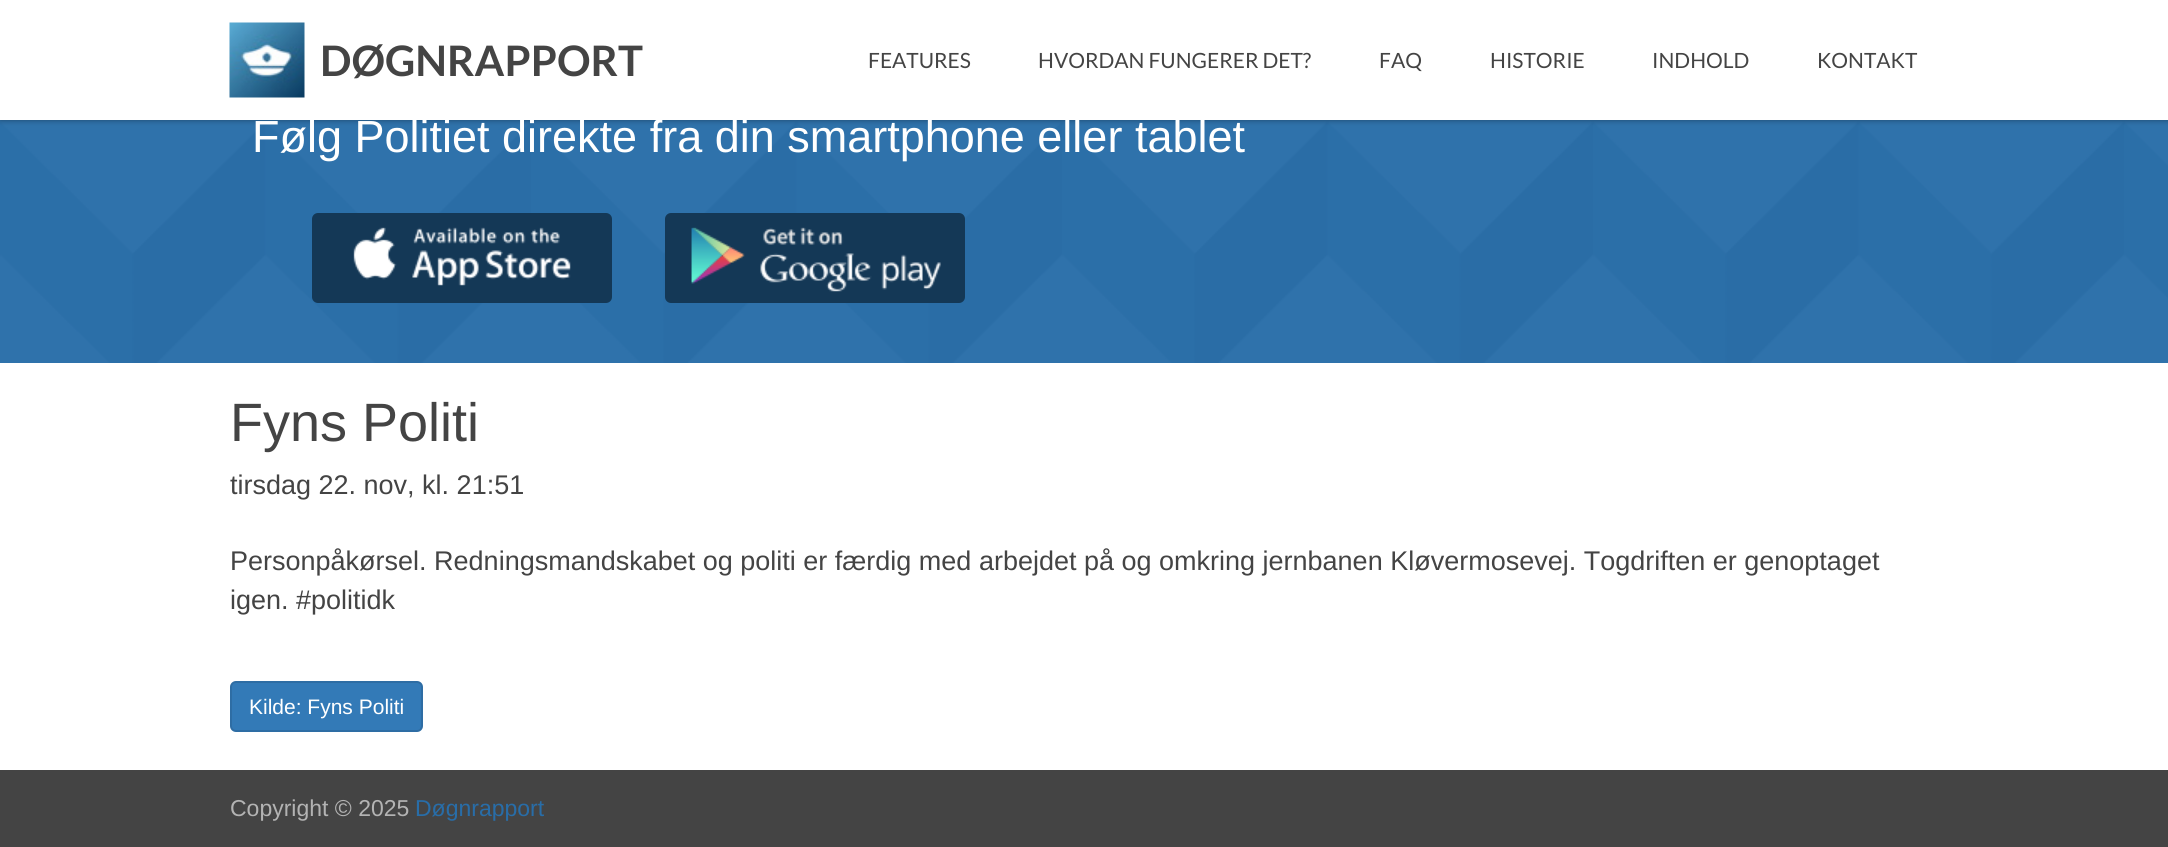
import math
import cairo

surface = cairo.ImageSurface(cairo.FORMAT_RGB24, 2168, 847)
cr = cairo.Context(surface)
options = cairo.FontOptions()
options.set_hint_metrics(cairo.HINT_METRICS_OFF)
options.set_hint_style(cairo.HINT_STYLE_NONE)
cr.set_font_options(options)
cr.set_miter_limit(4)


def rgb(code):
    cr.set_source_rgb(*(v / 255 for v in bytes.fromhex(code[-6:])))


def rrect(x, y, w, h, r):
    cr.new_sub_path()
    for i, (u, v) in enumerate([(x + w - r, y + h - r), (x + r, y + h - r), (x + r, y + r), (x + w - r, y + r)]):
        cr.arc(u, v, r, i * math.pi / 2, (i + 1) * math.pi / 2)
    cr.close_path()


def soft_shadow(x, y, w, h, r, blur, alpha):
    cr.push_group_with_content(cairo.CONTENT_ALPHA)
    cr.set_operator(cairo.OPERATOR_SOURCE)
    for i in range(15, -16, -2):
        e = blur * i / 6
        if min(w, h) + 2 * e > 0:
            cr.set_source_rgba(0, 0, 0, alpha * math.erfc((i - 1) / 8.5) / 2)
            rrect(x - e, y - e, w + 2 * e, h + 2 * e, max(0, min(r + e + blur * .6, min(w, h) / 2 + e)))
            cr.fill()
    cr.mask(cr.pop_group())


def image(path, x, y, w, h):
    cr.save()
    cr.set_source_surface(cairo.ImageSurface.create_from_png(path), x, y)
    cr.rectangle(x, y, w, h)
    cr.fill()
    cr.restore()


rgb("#ffffff")
cr.paint()
rgb("#286da8")
cr.rectangle(0, 120, 2168, 243)
cr.fill()
image("img/2.png", 0, 120, 2168, 243)
rgb("#000000")
soft_shadow(0, 0, 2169, 120, 0, 3, 0.4)
rgb("#ffffff")
cr.rectangle(0, 0, 2168, 120)
cr.fill()
image("img/1.png", 229, 22, 76, 76)
rgb("#143856")
rrect(312, 213, 300, 90, 6)
cr.fill()
image("img/3.png", 353, 227, 218, 59)
rrect(665, 213, 300, 90, 6)
cr.fill()
image("img/4.png", 691, 227, 250, 65)
rgb("#337ab7")
rrect(231, 682, 191, 49, 5)
cr.fill_preserve()
rgb("#2e6da4")
cr.stroke()
rgb("#444444")
cr.rectangle(0, 770, 2168, 77)
cr.fill()
cr.select_font_face("Lato", cairo.FONT_SLANT_NORMAL, cairo.FONT_WEIGHT_BOLD)
cr.set_font_size(42)
cr.move_to(320, 76)
cr.show_text("DØGNRAPPORT")
cr.select_font_face("Lato")
cr.set_font_size(21)
for x, y, s in [
    (868, 68, "FEATURES"),
    (1038, 68, "HVORDAN FUNGERER DET?"),
    (1379, 68, "FAQ"),
    (1490, 68, "HISTORIE"),
    (1652, 68, "INDHOLD"),
    (1817, 68, "KONTAKT"),
]:
    cr.move_to(x, y)
    cr.show_text(s)
cr.select_font_face("Liberation Sans")
cr.set_font_size(45)
rgb("#ffffff")
cr.move_to(252, 152)
cr.show_text("Følg Politiet direkte fra din smartphone eller tablet")
cr.set_font_size(54)
rgb("#444444")
cr.move_to(230, 441)
cr.show_text("Fyns Politi")
cr.set_font_size(27)
for x, y, s in [
    (230, 494, "tirsdag 22. nov, kl. 21:51"),
    (230, 570, "Personpåkørsel. Redningsmandskabet og politi er færdig med arbejdet på og omkring jernbanen Kløvermosevej. Togdriften er genoptaget"),
    (230, 609, "igen. #politidk"),
]:
    cr.move_to(x, y)
    cr.show_text(s)
cr.set_font_size(21)
rgb("#ffffff")
cr.move_to(249, 714)
cr.show_text("Kilde: Fyns Politi")
cr.set_font_size(23)
rgb("#b3b3b3")
cr.move_to(230, 816)
cr.show_text("Copyright © 2025")
rgb("#286da8")
cr.move_to(415, 816)
cr.show_text("Døgnrapport")
surface.write_to_png("page.png")
